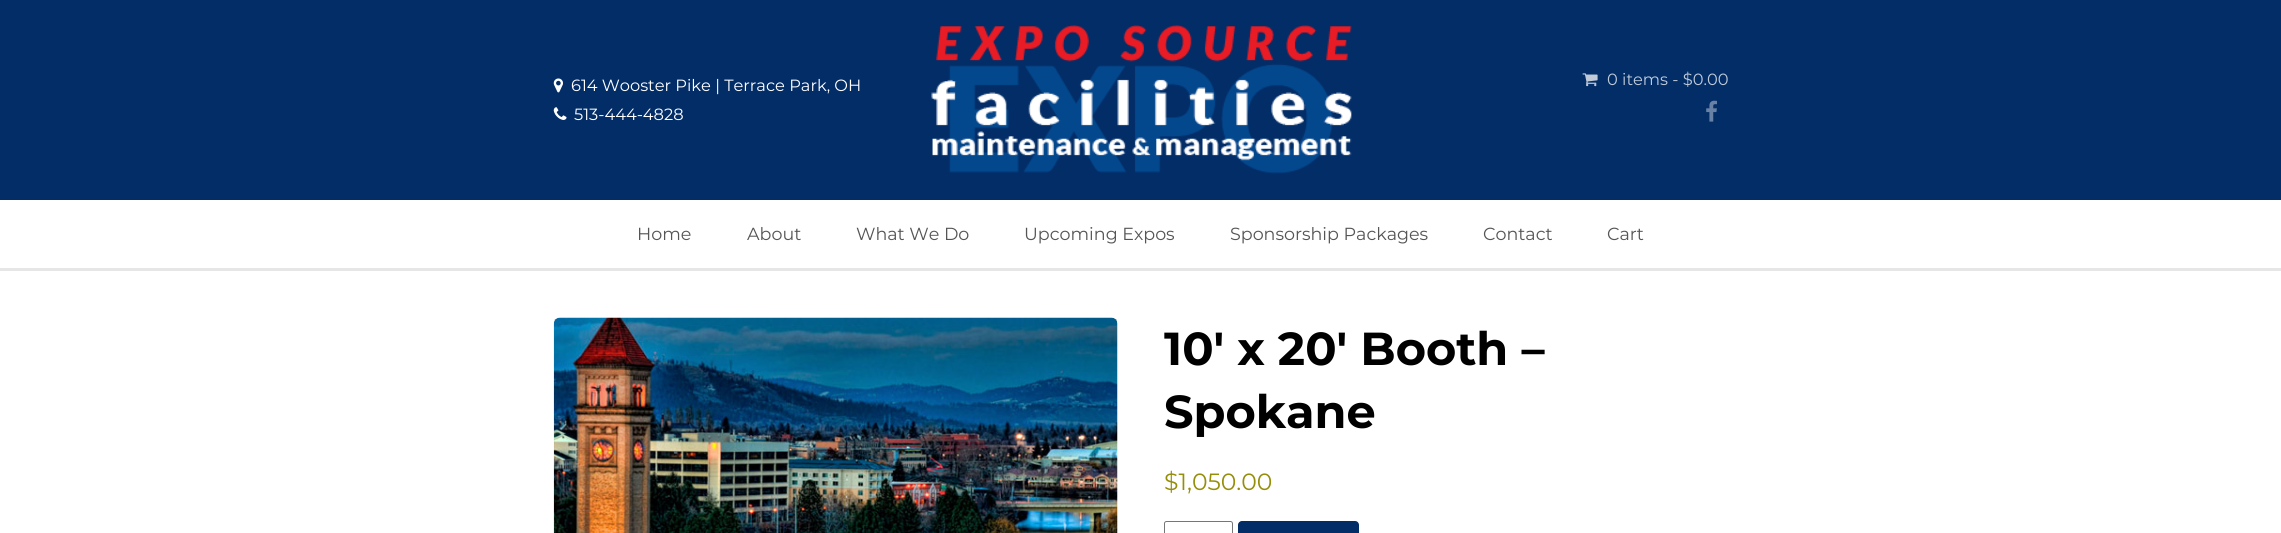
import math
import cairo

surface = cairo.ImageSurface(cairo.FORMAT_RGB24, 2281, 533)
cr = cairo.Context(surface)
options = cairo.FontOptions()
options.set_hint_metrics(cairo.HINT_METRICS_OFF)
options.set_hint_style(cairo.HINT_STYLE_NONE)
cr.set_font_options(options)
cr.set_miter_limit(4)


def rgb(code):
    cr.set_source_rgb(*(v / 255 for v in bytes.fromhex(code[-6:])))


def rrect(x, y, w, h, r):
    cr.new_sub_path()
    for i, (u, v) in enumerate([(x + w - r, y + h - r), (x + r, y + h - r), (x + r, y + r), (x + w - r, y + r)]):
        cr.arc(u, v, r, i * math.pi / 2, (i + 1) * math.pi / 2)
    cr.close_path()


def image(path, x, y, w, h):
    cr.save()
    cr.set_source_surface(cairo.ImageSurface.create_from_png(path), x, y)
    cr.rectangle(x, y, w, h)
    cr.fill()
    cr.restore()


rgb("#ffffff")
cr.paint()
rgb("#032d67")
cr.rectangle(0, 0, 2281, 200)
cr.fill()
image("img/1.png", 553, 78, 10, 15)
image("img/2.png", 553, 107, 14, 13)
image("img/3.png", 931, 25, 421, 149)
image("img/4.png", 1582, 73, 16, 14)
image("img/5.png", 1706, 100, 11, 22)
rgb("#e6e6e6")
cr.rectangle(0, 268, 2281, 3)
cr.fill()
image("img/6.png", 553, 317, 565, 216)
rrect(1164.5, 521.5, 68, 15, 2)
rgb("#767676")
cr.set_line_width(1)
cr.stroke()
rgb("#032d67")
rrect(1238, 521, 121, 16, 4)
cr.fill()
cr.select_font_face("Montserrat")
cr.set_font_size(16.25)
rgb("#ffffff")
cr.move_to(571, 91)
cr.show_text("614 Wooster Pike | Terrace Park, OH")
cr.move_to(574, 120)
cr.show_text("513-444-4828")
rgb("#c0cbd9")
cr.move_to(1607, 85)
cr.show_text("0 items - $0.00")
cr.set_font_size(17.5)
rgb("#555555")
for x, y, s in [
    (637, 240, "Home"),
    (747, 240, "About"),
    (856, 240, "What We Do"),
    (1024, 240, "Upcoming Expos"),
    (1230, 240, "Sponsorship Packages"),
    (1483, 240, "Contact"),
    (1607, 240, "Cart"),
]:
    cr.move_to(x, y)
    cr.show_text(s)
cr.select_font_face("Montserrat", cairo.FONT_SLANT_NORMAL, cairo.FONT_WEIGHT_BOLD)
cr.set_font_size(46.25)
rgb("#000000")
cr.move_to(1164, 365)
cr.show_text("10′ x 20′ Booth –")
cr.move_to(1164, 428)
cr.show_text("Spokane")
cr.select_font_face("Montserrat")
cr.set_font_size(23.5)
rgb("#958e09")
cr.move_to(1164, 490)
cr.show_text("$1,050.00")
surface.write_to_png("page.png")
